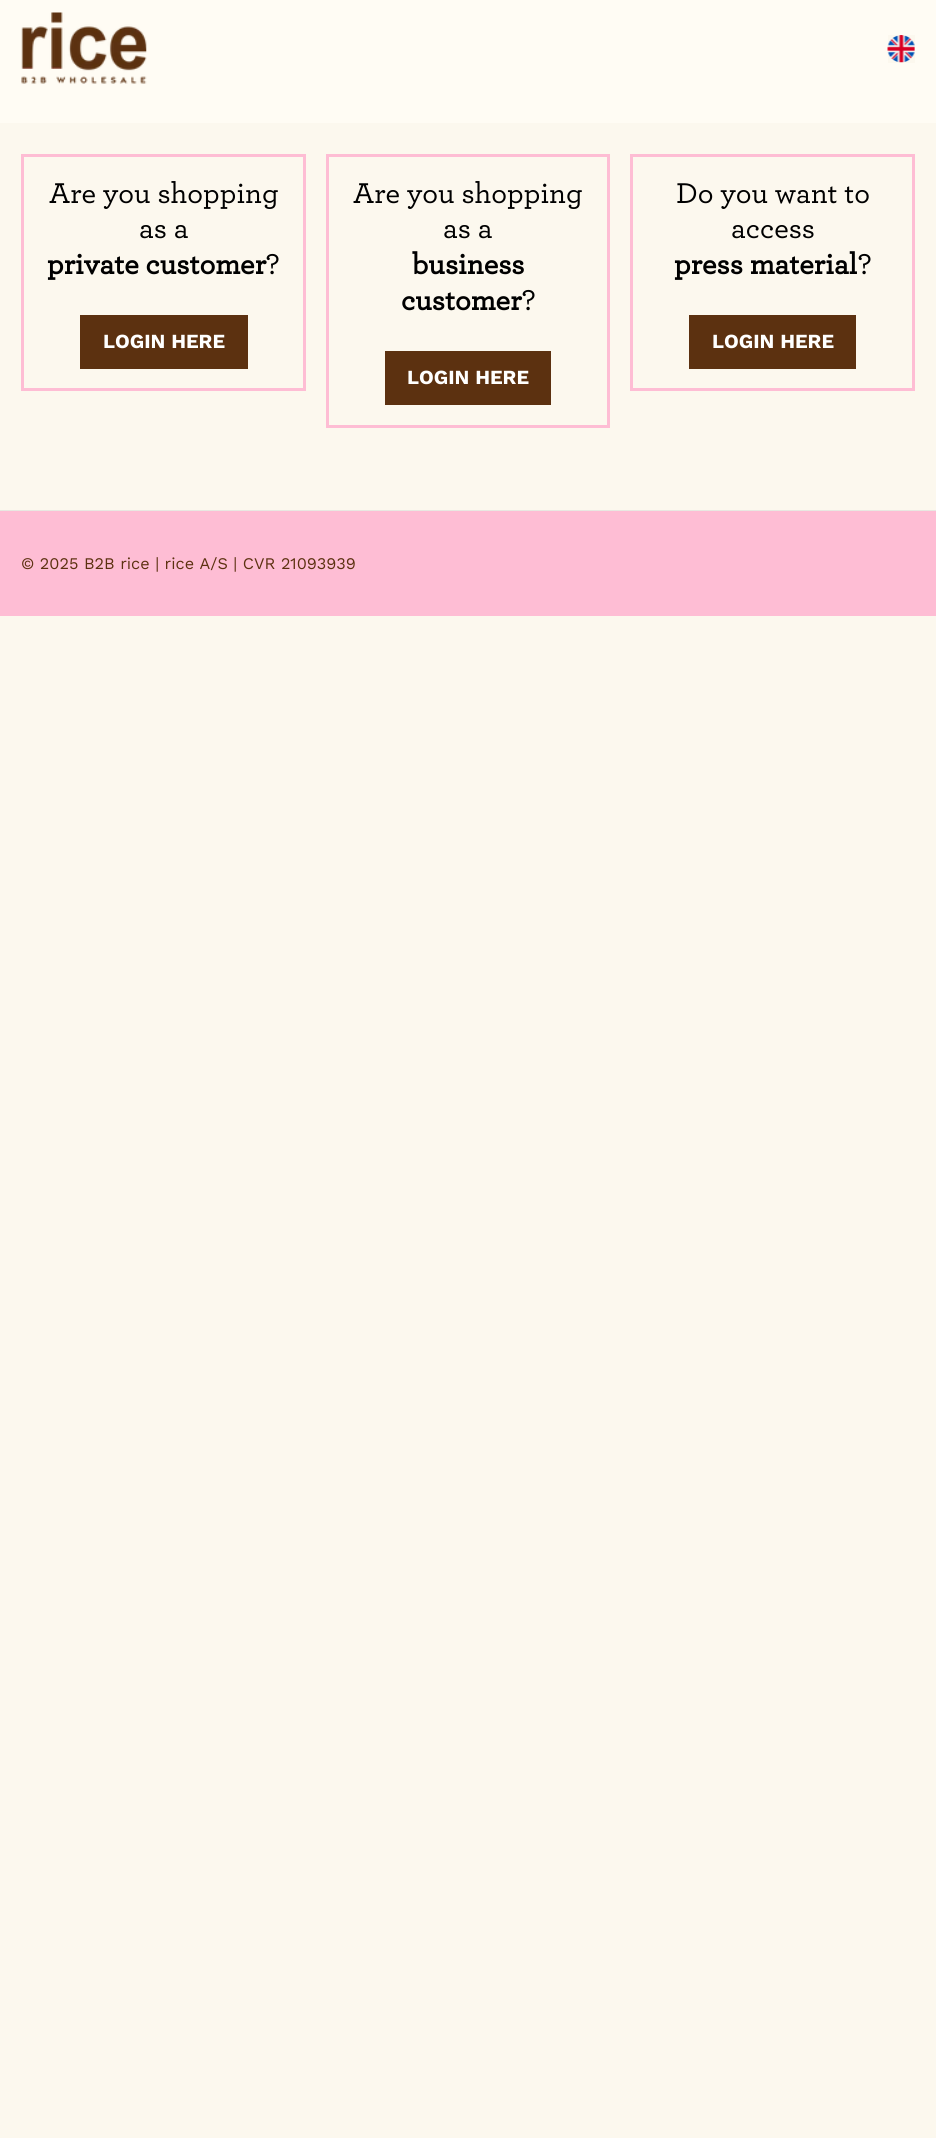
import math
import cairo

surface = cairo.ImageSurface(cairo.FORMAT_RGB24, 936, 2138)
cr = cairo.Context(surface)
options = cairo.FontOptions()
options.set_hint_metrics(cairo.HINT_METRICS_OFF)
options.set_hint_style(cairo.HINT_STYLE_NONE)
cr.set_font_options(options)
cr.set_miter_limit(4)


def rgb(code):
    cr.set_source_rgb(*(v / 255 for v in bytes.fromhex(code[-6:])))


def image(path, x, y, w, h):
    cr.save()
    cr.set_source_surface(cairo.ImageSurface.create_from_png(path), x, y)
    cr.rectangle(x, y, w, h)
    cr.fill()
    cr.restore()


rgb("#fcf8ee")
cr.paint()
rgb("#fffcf4")
cr.rectangle(0, 0, 936, 123)
cr.fill()
image("img/1.png", 21, 12, 126, 72)
rgb("#fcf8ee")
cr.rectangle(888, 35, 27, 28)
cr.fill()
image("img/2.png", 887, 35, 28, 28)
cr.rectangle(22.5, 155.5, 282, 234)
rgb("#febdd4")
cr.set_line_width(3)
cr.stroke()
rgb("#5c3110")
cr.rectangle(80, 315, 168, 54)
cr.fill()
cr.rectangle(327.5, 155.5, 281, 271)
rgb("#febdd4")
cr.stroke()
rgb("#5c3110")
cr.rectangle(385, 351, 166, 54)
cr.fill()
cr.rectangle(631.5, 155.5, 282, 234)
rgb("#febdd4")
cr.stroke()
for x, y, w, h, color in [
    (689, 315, 167, 54, "#5c3110"),
    (0, 511, 936, 105, "#febdd4"),
    (0, 510, 936, 1, "#e8e8e1"),
]:
    rgb(color)
    cr.rectangle(x, y, w, h)
    cr.fill()
cr.select_font_face("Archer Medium")
cr.set_font_size(30)
rgb("#000000")
cr.move_to(49, 203)
cr.show_text("Are you shopping")
cr.move_to(139, 238)
cr.show_text("as a")
cr.select_font_face("Archer", cairo.FONT_SLANT_NORMAL, cairo.FONT_WEIGHT_BOLD)
cr.move_to(47, 274)
cr.show_text("private customer")
cr.select_font_face("Archer Medium")
cr.move_to(266, 274)
cr.show_text("?")
cr.select_font_face("Work Sans", cairo.FONT_SLANT_NORMAL, cairo.FONT_WEIGHT_BOLD)
cr.set_font_size(20)
rgb("#ffffff")
cr.move_to(103, 348)
cr.show_text("LOGIN HERE")
cr.select_font_face("Archer Medium")
cr.set_font_size(30)
rgb("#000000")
cr.move_to(353, 203)
cr.show_text("Are you shopping")
cr.move_to(443, 238)
cr.show_text("as a")
cr.select_font_face("Archer", cairo.FONT_SLANT_NORMAL, cairo.FONT_WEIGHT_BOLD)
cr.move_to(412, 274)
cr.show_text("business")
cr.move_to(401, 310)
cr.show_text("customer")
cr.select_font_face("Archer Medium")
cr.move_to(522, 310)
cr.show_text("?")
cr.select_font_face("Work Sans", cairo.FONT_SLANT_NORMAL, cairo.FONT_WEIGHT_BOLD)
cr.set_font_size(20)
rgb("#ffffff")
cr.move_to(407, 384)
cr.show_text("LOGIN HERE")
cr.select_font_face("Archer Medium")
cr.set_font_size(30)
rgb("#000000")
cr.move_to(676, 203)
cr.show_text("Do you want to")
cr.move_to(731, 238)
cr.show_text("access")
cr.select_font_face("Archer", cairo.FONT_SLANT_NORMAL, cairo.FONT_WEIGHT_BOLD)
cr.move_to(674, 274)
cr.show_text("press material")
cr.select_font_face("Archer Medium")
cr.move_to(858, 274)
cr.show_text("?")
cr.select_font_face("Work Sans", cairo.FONT_SLANT_NORMAL, cairo.FONT_WEIGHT_BOLD)
cr.set_font_size(20)
rgb("#ffffff")
cr.move_to(712, 348)
cr.show_text("LOGIN HERE")
cr.select_font_face("Work Sans")
cr.set_font_size(16.25)
rgb("#5c3110")
cr.move_to(21, 569)
cr.show_text("© 2025 B2B rice | rice A/S | CVR 21093939")
surface.write_to_png("page.png")
